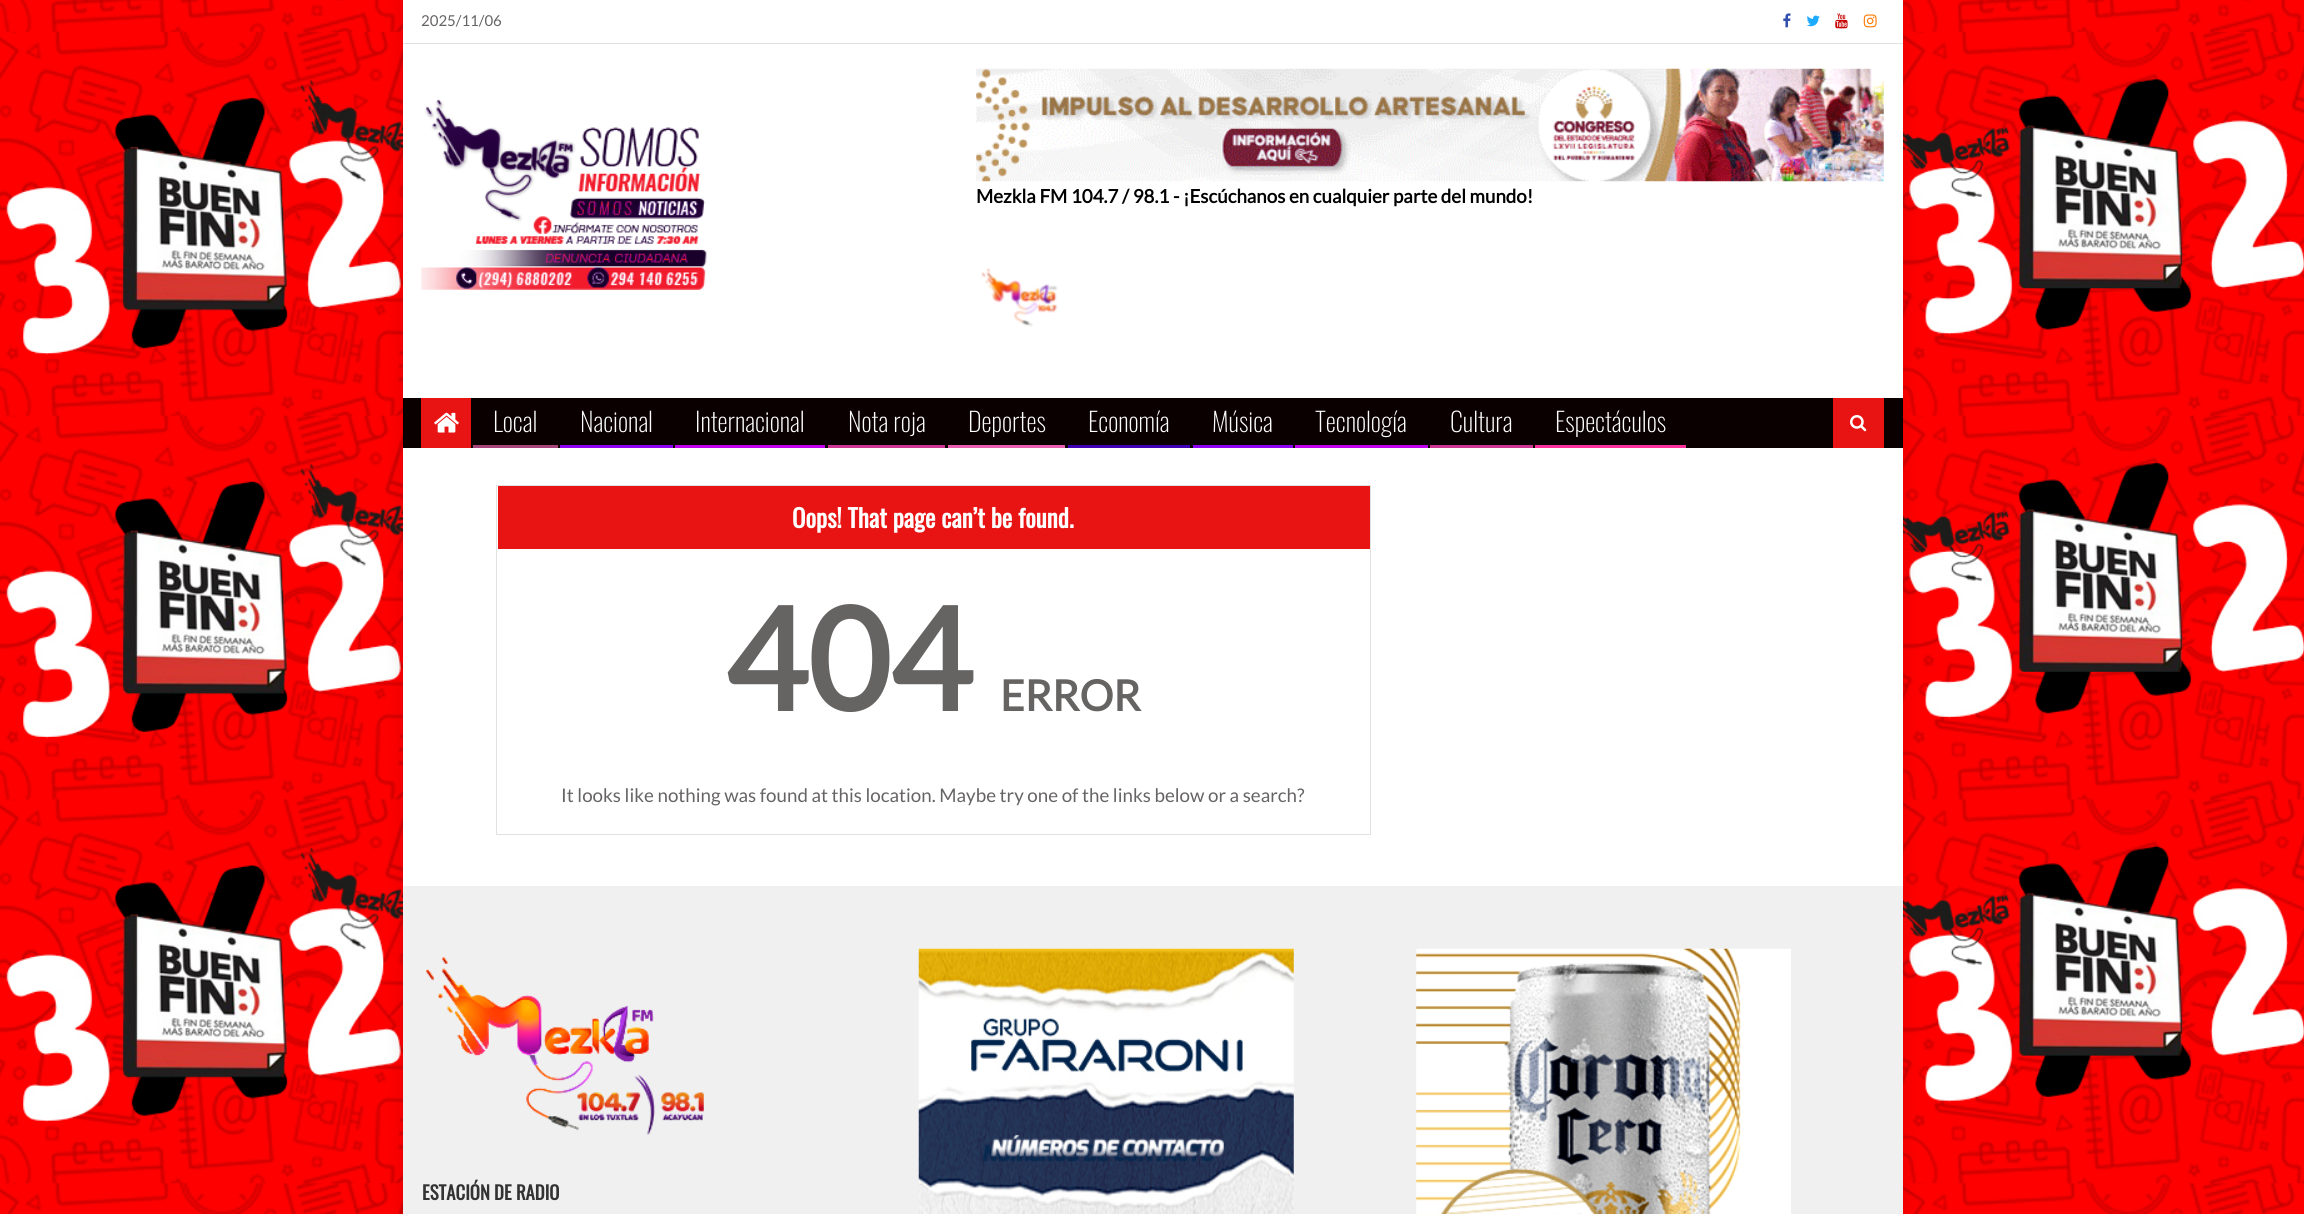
import math
import cairo

surface = cairo.ImageSurface(cairo.FORMAT_RGB24, 2304, 1214)
cr = cairo.Context(surface)
options = cairo.FontOptions()
options.set_hint_metrics(cairo.HINT_METRICS_OFF)
options.set_hint_style(cairo.HINT_STYLE_NONE)
cr.set_font_options(options)
cr.set_miter_limit(4)


def rgb(code):
    cr.set_source_rgb(*(v / 255 for v in bytes.fromhex(code[-6:])))


def rrect(x, y, w, h, r):
    cr.new_sub_path()
    for i, (u, v) in enumerate([(x + w - r, y + h - r), (x + r, y + h - r), (x + r, y + r), (x + w - r, y + r)]):
        cr.arc(u, v, r, i * math.pi / 2, (i + 1) * math.pi / 2)
    cr.close_path()


def soft_shadow(x, y, w, h, r, blur, alpha):
    cr.push_group_with_content(cairo.CONTENT_ALPHA)
    cr.set_operator(cairo.OPERATOR_SOURCE)
    for i in range(15, -16, -2):
        e = blur * i / 6
        if min(w, h) + 2 * e > 0:
            cr.set_source_rgba(0, 0, 0, alpha * math.erfc((i - 1) / 8.5) / 2)
            rrect(x - e, y - e, w + 2 * e, h + 2 * e, max(0, min(r + e + blur * .6, min(w, h) / 2 + e)))
            cr.fill()
    cr.mask(cr.pop_group())


def image(path, x, y, w, h):
    cr.save()
    cr.set_source_surface(cairo.ImageSurface.create_from_png(path), x, y)
    cr.rectangle(x, y, w, h)
    cr.fill()
    cr.restore()


rgb("#ffffff")
cr.paint()
image("img/1.png", 0, 0, 2304, 1214)
rgb("#000000")
soft_shadow(403, 0, 1500, 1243, 0, 9.5, 0.1)
rgb("#ffffff")
cr.rectangle(403, 0, 1500, 886)
cr.fill()
rgb("#e1e1e1")
cr.rectangle(403, 43, 1500, 1)
cr.fill()
image("img/2.png", 1783, 13, 8, 15)
image("img/3.png", 1806, 15, 14, 12)
image("img/4.png", 1835, 13, 13, 16)
image("img/5.png", 1863, 14, 14, 14)
image("img/6.png", 421, 99, 286, 191)
image("img/7.png", 976, 68, 908, 114)
image("img/8.png", 981, 268, 77, 59)
rgb("#0a0000")
cr.rectangle(403, 398, 1500, 50)
cr.fill()
rgb("#e81414")
cr.rectangle(421, 398, 50, 50)
cr.fill()
image("img/9.png", 434, 412, 25, 21)
for x, y, w, h, color in [
    (473, 445, 85, 3, "#a6447a"),
    (560, 445, 113, 3, "#8d00f2"),
    (675, 445, 150, 3, "#c100ed"),
    (828, 445, 117, 3, "#ca3691"),
    (948, 445, 117, 3, "#e85fb1"),
    (1068, 445, 122, 3, "#3f00b5"),
    (1193, 445, 100, 3, "#8d00f2"),
    (1295, 445, 133, 3, "#c100ed"),
    (1430, 445, 103, 3, "#ca3691"),
    (1535, 445, 151, 3, "#fa319b"),
    (1833, 398, 51, 50, "#e81414"),
]:
    rgb(color)
    cr.rectangle(x, y, w, h)
    cr.fill()
image("img/10.png", 1850, 415, 17, 17)
cr.rectangle(496.5, 485.5, 874, 349)
rgb("#e1e1e1")
cr.set_line_width(1)
cr.stroke()
rgb("#e81414")
cr.rectangle(498, 486, 872, 63)
cr.fill()
rgb("#f0f0f0")
cr.rectangle(403, 886, 1500, 328)
cr.fill()
image("img/11.png", 426, 957, 278, 178)
image("img/12.png", 918, 948, 376, 266)
image("img/13.png", 1416, 948, 375, 266)
cr.select_font_face("Lato")
cr.set_font_size(15)
rgb("#666363")
cr.move_to(421, 26)
cr.show_text("2025/11/06")
cr.select_font_face("Lato", cairo.FONT_SLANT_NORMAL, cairo.FONT_WEIGHT_BOLD)
cr.set_font_size(18.75)
rgb("#000000")
cr.move_to(976, 203)
cr.show_text("Mezkla FM 104.7 / 98.1 - ¡Escúchanos en cualquier parte del mundo!")
cr.select_font_face("Oswald ExtraLight")
cr.set_font_size(26.25)
rgb("#ffffff")
for x, y, s in [
    (493, 432, "Local"),
    (580, 432, "Nacional"),
    (695, 432, "Internacional"),
    (848, 432, "Nota roja"),
    (968, 432, "Deportes"),
    (1088, 432, "Economía"),
    (1212, 432, "Música"),
    (1315, 432, "Tecnología"),
    (1450, 432, "Cultura"),
    (1555, 432, "Espectáculos"),
]:
    cr.move_to(x, y)
    cr.show_text(s)
cr.select_font_face("Oswald", cairo.FONT_SLANT_NORMAL, cairo.FONT_WEIGHT_BOLD)
cr.set_font_size(25)
cr.move_to(792, 528)
cr.show_text("Oops! That page can’t be found.")
cr.select_font_face("Lato", cairo.FONT_SLANT_NORMAL, cairo.FONT_WEIGHT_BOLD)
cr.set_font_size(142)
rgb("#666363")
cr.move_to(725, 711)
cr.show_text("404")
cr.set_font_size(42.5)
cr.move_to(1000, 711)
cr.show_text("ERROR")
cr.select_font_face("Lato")
cr.set_font_size(18.75)
cr.move_to(561, 802)
cr.show_text("It looks like nothing was found at this location. Maybe try one of the links below or a search?")
cr.select_font_face("Oswald", cairo.FONT_SLANT_NORMAL, cairo.FONT_WEIGHT_BOLD)
rgb("#333333")
cr.move_to(422, 1200)
cr.show_text("ESTACIÓN DE RADIO")
surface.write_to_png("page.png")
